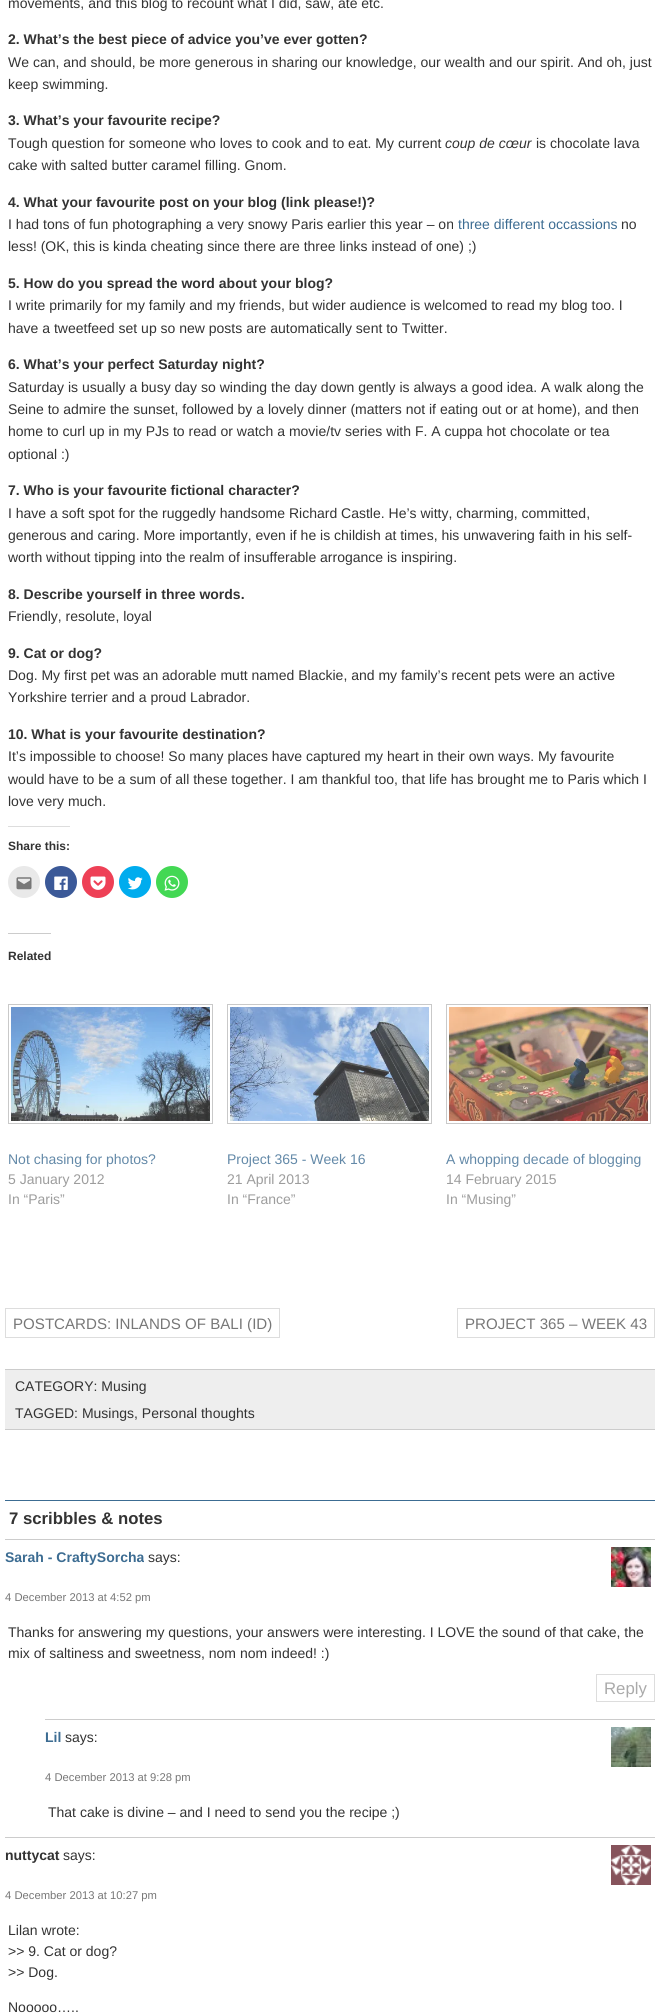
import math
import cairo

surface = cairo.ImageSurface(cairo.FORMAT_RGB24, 655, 2016)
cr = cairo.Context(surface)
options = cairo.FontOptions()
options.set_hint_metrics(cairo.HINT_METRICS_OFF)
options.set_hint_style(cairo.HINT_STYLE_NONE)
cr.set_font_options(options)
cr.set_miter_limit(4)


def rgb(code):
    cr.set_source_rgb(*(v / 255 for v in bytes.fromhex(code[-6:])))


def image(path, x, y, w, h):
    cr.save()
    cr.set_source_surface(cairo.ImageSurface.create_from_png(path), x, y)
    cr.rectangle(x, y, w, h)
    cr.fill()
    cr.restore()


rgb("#ffffff")
cr.paint()
rgb("#dddddd")
cr.rectangle(8, 826, 62, 1)
cr.fill()
rgb("#e9e9e9")
cr.arc(24, 882, 16, 0, 2 * math.pi)
cr.fill()
image("img/1.png", 16, 877, 16, 13)
rgb("#3b5998")
cr.arc(61, 882, 16, 0, 2 * math.pi)
cr.fill()
image("img/2.png", 54, 876, 14, 14)
rgb("#ee4056")
cr.arc(98, 882, 16, 0, 2 * math.pi)
cr.fill()
image("img/3.png", 90, 876, 16, 14)
rgb("#00acee")
cr.arc(135, 882, 16, 0, 2 * math.pi)
cr.fill()
image("img/4.png", 127, 877, 16, 13)
rgb("#43d854")
cr.arc(172, 882, 16, 0, 2 * math.pi)
cr.fill()
image("img/5.png", 164, 875, 16, 16)
rgb("#cccccc")
cr.rectangle(8, 933, 43, 1)
cr.fill()
cr.rectangle(8.5, 1004.5, 204, 119)
rgb("#c9c9c9")
cr.set_line_width(1)
cr.stroke()
image("img/6.png", 11, 1007, 199, 114)
cr.rectangle(227.5, 1004.5, 204, 119)
cr.stroke()
image("img/7.png", 230, 1007, 199, 114)
cr.rectangle(446.5, 1004.5, 204, 119)
cr.stroke()
image("img/8.png", 449, 1007, 199, 114)
cr.rectangle(5.5, 1308.5, 274, 29)
rgb("#dddddd")
cr.stroke()
cr.rectangle(457.5, 1308.5, 197, 29)
cr.stroke()
for x, y, w, h, color in [
    (5, 1370, 650, 59, "#eeeeee"),
    (5, 1369, 650, 1, "#cccccc"),
    (5, 1429, 650, 1, "#cccccc"),
    (5, 1500, 650, 1, "#3c6c92"),
    (5, 1539, 650, 1, "#cccccc"),
]:
    rgb(color)
    cr.rectangle(x, y, w, h)
    cr.fill()
image("img/9.png", 611, 1547, 40, 40)
cr.rectangle(596.5, 1674.5, 58, 27)
rgb("#dddddd")
cr.stroke()
rgb("#cccccc")
cr.rectangle(45, 1719, 610, 1)
cr.fill()
image("img/10.png", 611, 1727, 40, 40)
cr.rectangle(5, 1837, 650, 1)
cr.fill()
image("img/11.png", 611, 1845, 40, 40)
cr.select_font_face("Liberation Sans")
cr.set_font_size(14)
rgb("#333333")
cr.move_to(8, 8)
cr.show_text("movements, and this blog to recount what I did, saw, ate etc.")
cr.select_font_face("Liberation Sans", cairo.FONT_SLANT_NORMAL, cairo.FONT_WEIGHT_BOLD)
cr.move_to(8, 44)
cr.show_text("2. What’s the best piece of advice you’ve ever gotten?")
cr.select_font_face("Liberation Sans")
cr.move_to(8, 67)
cr.show_text("We can, and should, be more generous in sharing our knowledge, our wealth and our spirit. And oh, just")
cr.move_to(8, 89)
cr.show_text("keep swimming.")
cr.select_font_face("Liberation Sans", cairo.FONT_SLANT_NORMAL, cairo.FONT_WEIGHT_BOLD)
cr.move_to(8, 125)
cr.show_text("3. What’s your favourite recipe?")
cr.select_font_face("Liberation Sans")
cr.move_to(8, 148)
cr.show_text("Tough question for someone who loves to cook and to eat. My current")
cr.select_font_face("Liberation Sans", cairo.FONT_SLANT_ITALIC)
cr.move_to(445, 148)
cr.show_text("coup de cœur")
cr.select_font_face("Liberation Sans")
cr.move_to(536, 148)
cr.show_text("is chocolate lava")
cr.move_to(8, 170)
cr.show_text("cake with salted butter caramel filling. Gnom.")
cr.select_font_face("Liberation Sans", cairo.FONT_SLANT_NORMAL, cairo.FONT_WEIGHT_BOLD)
cr.move_to(8, 207)
cr.show_text("4. What your favourite post on your blog (link please!)?")
cr.select_font_face("Liberation Sans")
cr.move_to(8, 229)
cr.show_text("I had tons of fun photographing a very snowy Paris earlier this year – on")
rgb("#3c6c92")
cr.move_to(458, 229)
cr.show_text("three different occassions")
rgb("#333333")
cr.move_to(621, 229)
cr.show_text("no")
cr.move_to(8, 251)
cr.show_text("less! (OK, this is kinda cheating since there are three links instead of one) ;)")
cr.select_font_face("Liberation Sans", cairo.FONT_SLANT_NORMAL, cairo.FONT_WEIGHT_BOLD)
cr.move_to(8, 288)
cr.show_text("5. How do you spread the word about your blog?")
cr.select_font_face("Liberation Sans")
cr.move_to(8, 310)
cr.show_text("I write primarily for my family and my friends, but wider audience is welcomed to read my blog too. I")
cr.move_to(8, 333)
cr.show_text("have a tweetfeed set up so new posts are automatically sent to Twitter.")
cr.select_font_face("Liberation Sans", cairo.FONT_SLANT_NORMAL, cairo.FONT_WEIGHT_BOLD)
cr.move_to(8, 369)
cr.show_text("6. What’s your perfect Saturday night?")
cr.select_font_face("Liberation Sans")
for x, y, s in [
    (8, 392, "Saturday is usually a busy day so winding the day down gently is always a good idea. A walk along the"),
    (8, 414, "Seine to admire the sunset, followed by a lovely dinner (matters not if eating out or at home), and then"),
    (8, 436, "home to curl up in my PJs to read or watch a movie/tv series with F. A cuppa hot chocolate or tea"),
    (8, 459, "optional :)"),
]:
    cr.move_to(x, y)
    cr.show_text(s)
cr.select_font_face("Liberation Sans", cairo.FONT_SLANT_NORMAL, cairo.FONT_WEIGHT_BOLD)
cr.move_to(8, 495)
cr.show_text("7. Who is your favourite fictional character?")
cr.select_font_face("Liberation Sans")
for x, y, s in [
    (8, 518, "I have a soft spot for the ruggedly handsome Richard Castle. He’s witty, charming, committed,"),
    (8, 540, "generous and caring. More importantly, even if he is childish at times, his unwavering faith in his self-"),
    (8, 562, "worth without tipping into the realm of insufferable arrogance is inspiring."),
]:
    cr.move_to(x, y)
    cr.show_text(s)
cr.select_font_face("Liberation Sans", cairo.FONT_SLANT_NORMAL, cairo.FONT_WEIGHT_BOLD)
cr.move_to(8, 599)
cr.show_text("8. Describe yourself in three words.")
cr.select_font_face("Liberation Sans")
cr.move_to(8, 621)
cr.show_text("Friendly, resolute, loyal")
cr.select_font_face("Liberation Sans", cairo.FONT_SLANT_NORMAL, cairo.FONT_WEIGHT_BOLD)
cr.move_to(8, 658)
cr.show_text("9. Cat or dog?")
cr.select_font_face("Liberation Sans")
cr.move_to(8, 680)
cr.show_text("Dog. My first pet was an adorable mutt named Blackie, and my family’s recent pets were an active")
cr.move_to(8, 702)
cr.show_text("Yorkshire terrier and a proud Labrador.")
cr.select_font_face("Liberation Sans", cairo.FONT_SLANT_NORMAL, cairo.FONT_WEIGHT_BOLD)
cr.move_to(8, 739)
cr.show_text("10. What is your favourite destination?")
cr.select_font_face("Liberation Sans")
for x, y, s in [
    (8, 761, "It’s impossible to choose! So many places have captured my heart in their own ways. My favourite"),
    (8, 784, "would have to be a sum of all these together. I am thankful too, that life has brought me to Paris which I"),
    (8, 806, "love very much."),
]:
    cr.move_to(x, y)
    cr.show_text(s)
cr.select_font_face("Liberation Sans", cairo.FONT_SLANT_NORMAL, cairo.FONT_WEIGHT_BOLD)
cr.set_font_size(12)
cr.move_to(8, 850)
cr.show_text("Share this:")
cr.move_to(8, 960)
cr.show_text("Related")
cr.select_font_face("Liberation Sans")
cr.set_font_size(14)
rgb("#6389a8")
cr.move_to(8, 1164)
cr.show_text("Not chasing for photos?")
rgb("#9d9d9d")
cr.move_to(8, 1184)
cr.show_text("5 January 2012")
cr.move_to(8, 1204)
cr.show_text("In “Paris”")
rgb("#6389a8")
cr.move_to(227, 1164)
cr.show_text("Project 365 - Week 16")
rgb("#9d9d9d")
cr.move_to(227, 1184)
cr.show_text("21 April 2013")
cr.move_to(227, 1204)
cr.show_text("In “France”")
rgb("#6389a8")
cr.move_to(446, 1164)
cr.show_text("A whopping decade of blogging")
rgb("#9d9d9d")
cr.move_to(446, 1184)
cr.show_text("14 February 2015")
cr.move_to(446, 1204)
cr.show_text("In “Musing”")
cr.set_font_size(15.1)
rgb("#777777")
cr.move_to(13, 1329)
cr.show_text("POSTCARDS: INLANDS OF BALI (ID)")
cr.move_to(465, 1329)
cr.show_text("PROJECT 365 – WEEK 43")
cr.set_font_size(14)
rgb("#333333")
cr.move_to(15, 1391)
cr.show_text("CATEGORY: Musing")
cr.move_to(15, 1418)
cr.show_text("TAGGED: Musings, Personal thoughts")
cr.select_font_face("Liberation Sans", cairo.FONT_SLANT_NORMAL, cairo.FONT_WEIGHT_BOLD)
cr.set_font_size(16.75)
cr.move_to(9, 1524)
cr.show_text("7 scribbles & notes")
cr.set_font_size(14)
rgb("#3c6c92")
cr.move_to(5, 1562)
cr.show_text("Sarah - CraftySorcha")
cr.select_font_face("Liberation Sans")
rgb("#333333")
cr.move_to(148, 1562)
cr.show_text("says:")
cr.set_font_size(11.25)
rgb("#777777")
cr.move_to(5, 1601)
cr.show_text("4 December 2013 at 4:52 pm")
cr.set_font_size(14)
rgb("#333333")
cr.move_to(8, 1637)
cr.show_text("Thanks for answering my questions, your answers were interesting. I LOVE the sound of that cake, the")
cr.move_to(8, 1658)
cr.show_text("mix of saltiness and sweetness, nom nom indeed! :)")
cr.set_font_size(16.75)
rgb("#aaaaaa")
cr.move_to(604, 1694)
cr.show_text("Reply")
cr.select_font_face("Liberation Sans", cairo.FONT_SLANT_NORMAL, cairo.FONT_WEIGHT_BOLD)
cr.set_font_size(14)
rgb("#3c6c92")
cr.move_to(45, 1742)
cr.show_text("Lil")
cr.select_font_face("Liberation Sans")
rgb("#333333")
cr.move_to(65, 1742)
cr.show_text("says:")
cr.set_font_size(11.25)
rgb("#777777")
cr.move_to(45, 1781)
cr.show_text("4 December 2013 at 9:28 pm")
cr.set_font_size(14)
rgb("#333333")
cr.move_to(48, 1817)
cr.show_text("That cake is divine – and I need to send you the recipe ;)")
cr.select_font_face("Liberation Sans", cairo.FONT_SLANT_NORMAL, cairo.FONT_WEIGHT_BOLD)
cr.move_to(5, 1860)
cr.show_text("nuttycat")
cr.select_font_face("Liberation Sans")
cr.move_to(63, 1860)
cr.show_text("says:")
cr.set_font_size(11.25)
rgb("#777777")
cr.move_to(5, 1899)
cr.show_text("4 December 2013 at 10:27 pm")
cr.set_font_size(14)
rgb("#333333")
for x, y, s in [
    (8, 1935, "Lilan wrote:"),
    (8, 1956, ">> 9. Cat or dog?"),
    (8, 1977, ">> Dog."),
    (8, 2012, "Nooooo….."),
]:
    cr.move_to(x, y)
    cr.show_text(s)
surface.write_to_png("page.png")
